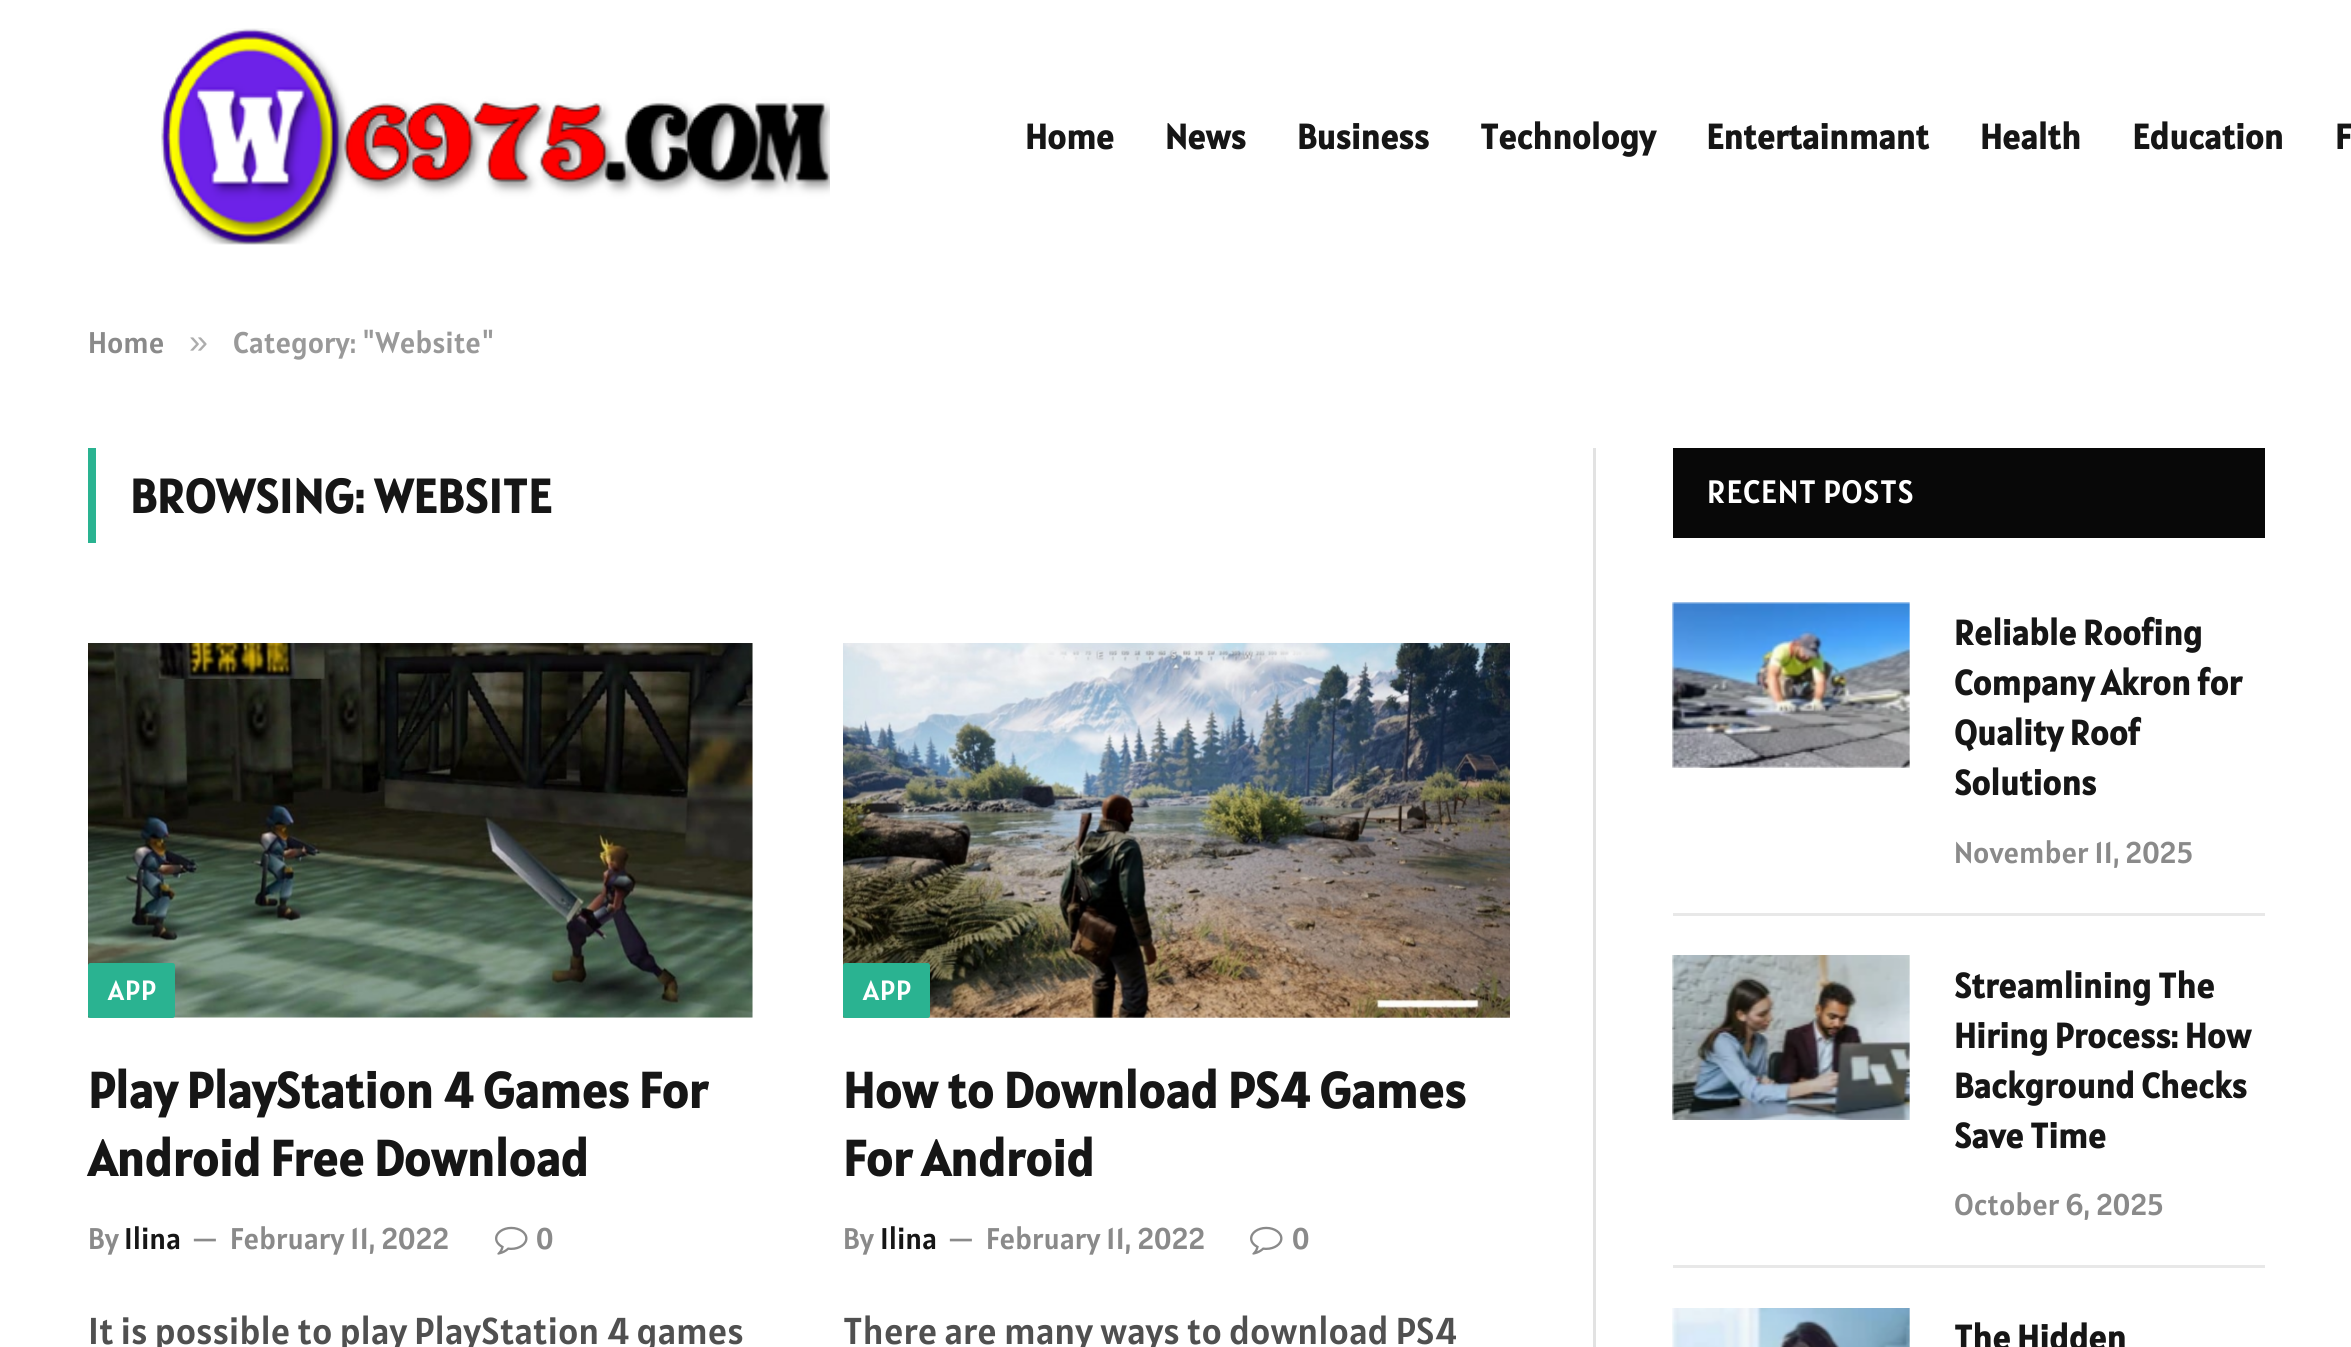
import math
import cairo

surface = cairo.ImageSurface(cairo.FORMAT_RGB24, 2351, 1347)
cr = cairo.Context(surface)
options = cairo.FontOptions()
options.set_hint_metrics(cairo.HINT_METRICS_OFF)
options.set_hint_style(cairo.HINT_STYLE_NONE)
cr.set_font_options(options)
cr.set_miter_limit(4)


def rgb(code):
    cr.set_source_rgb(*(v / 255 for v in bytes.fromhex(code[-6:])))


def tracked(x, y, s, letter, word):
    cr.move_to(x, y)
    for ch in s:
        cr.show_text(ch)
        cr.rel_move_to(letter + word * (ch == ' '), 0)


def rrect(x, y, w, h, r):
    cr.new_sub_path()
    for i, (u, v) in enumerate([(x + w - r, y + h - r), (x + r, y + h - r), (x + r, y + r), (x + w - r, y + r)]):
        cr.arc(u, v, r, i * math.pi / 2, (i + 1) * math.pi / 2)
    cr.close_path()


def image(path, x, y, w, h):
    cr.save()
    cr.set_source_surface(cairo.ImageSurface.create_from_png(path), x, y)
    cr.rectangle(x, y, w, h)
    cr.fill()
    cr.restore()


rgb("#ffffff")
cr.paint()
image("img/1.png", 161, 28, 669, 217)
rgb("#2ab391")
cr.rectangle(88, 448, 8, 95)
cr.fill()
image("img/2.png", 88, 643, 665, 375)
rrect(88, 963, 87, 55, 2.5)
cr.fill()
image("img/3.png", 495, 1226, 33, 29)
image("img/4.png", 843, 643, 667, 375)
rrect(843, 963, 87, 55, 2.5)
cr.fill()
image("img/3.png", 1250, 1226, 33, 29)
rgb("#e2e2e2")
cr.rectangle(1593, 448, 3, 899)
cr.fill()
rgb("#080808")
cr.rectangle(1673, 448, 592, 90)
cr.fill()
image("img/5.png", 1672, 602, 238, 166)
rgb("#e8e8e8")
cr.rectangle(1673, 913, 592, 3)
cr.fill()
image("img/6.png", 1672, 955, 238, 165)
cr.rectangle(1673, 1265, 592, 3)
cr.fill()
image("img/7.png", 1672, 1308, 238, 39)
cr.select_font_face("Alatsi", cairo.FONT_SLANT_NORMAL, cairo.FONT_WEIGHT_BOLD)
cr.set_font_size(35)
rgb("#161616")
for x, y, s in [
    (1025, 149, "Home"),
    (1165, 149, "News"),
    (1297, 149, "Business"),
    (1480, 149, "Technology"),
    (1706, 149, "Entertainmant"),
    (1980, 149, "Health"),
    (2132, 149, "Education"),
    (2335, 149, "F"),
]:
    cr.move_to(x, y)
    cr.show_text(s)
cr.select_font_face("Alatsi")
cr.set_font_size(30)
rgb("#8a8a8a")
cr.move_to(88, 353)
cr.show_text("Home")
cr.select_font_face("Liberation Sans")
cr.set_font_size(34)
rgb("#adadad")
cr.move_to(189, 353)
cr.show_text("»")
cr.select_font_face("Alatsi")
cr.set_font_size(30)
rgb("#999999")
cr.move_to(233, 353)
cr.show_text("Category: \"Website\"")
cr.select_font_face("Alatsi", cairo.FONT_SLANT_NORMAL, cairo.FONT_WEIGHT_BOLD)
cr.set_font_size(47.5)
rgb("#161616")
tracked(130, 513, "BROWSING: WEBSITE", 0.5, 0)
cr.select_font_face("Alatsi")
cr.set_font_size(28)
rgb("#ffffff")
tracked(108, 1000, "APP", 1, 0)
cr.select_font_face("Alatsi", cairo.FONT_SLANT_NORMAL, cairo.FONT_WEIGHT_BOLD)
cr.set_font_size(50)
rgb("#161616")
cr.move_to(88, 1108)
cr.show_text("Play PlayStation 4 Games For")
cr.move_to(88, 1176)
cr.show_text("Android Free Download")
cr.select_font_face("Alatsi")
cr.set_font_size(30)
rgb("#8a8a8a")
cr.move_to(88, 1249)
cr.show_text("By")
rgb("#161616")
cr.move_to(124, 1249)
cr.show_text("Ilina")
cr.set_font_size(27)
rgb("#8a8a8a")
cr.move_to(192, 1248)
cr.show_text("—")
cr.set_font_size(30)
cr.move_to(230, 1249)
cr.show_text("February 11, 2022")
cr.move_to(536, 1249)
cr.show_text("0")
cr.set_font_size(37.5)
rgb("#505050")
cr.move_to(88, 1344)
cr.show_text("It is possible to play PlayStation 4 games")
cr.set_font_size(28)
rgb("#ffffff")
tracked(863, 1000, "APP", 1, 0)
cr.select_font_face("Alatsi", cairo.FONT_SLANT_NORMAL, cairo.FONT_WEIGHT_BOLD)
cr.set_font_size(50)
rgb("#161616")
cr.move_to(843, 1108)
cr.show_text("How to Download PS4 Games")
cr.move_to(843, 1176)
cr.show_text("For Android")
cr.select_font_face("Alatsi")
cr.set_font_size(30)
rgb("#8a8a8a")
cr.move_to(843, 1249)
cr.show_text("By")
rgb("#161616")
cr.move_to(880, 1249)
cr.show_text("Ilina")
cr.set_font_size(27)
rgb("#8a8a8a")
cr.move_to(948, 1248)
cr.show_text("—")
cr.set_font_size(30)
cr.move_to(986, 1249)
cr.show_text("February 11, 2022")
cr.move_to(1292, 1249)
cr.show_text("0")
cr.set_font_size(37.5)
rgb("#505050")
cr.move_to(843, 1344)
cr.show_text("There are many ways to download PS4")
cr.set_font_size(32.5)
rgb("#ffffff")
tracked(1707, 503, "RECENT POSTS", 0.6, 0)
cr.select_font_face("Alatsi", cairo.FONT_SLANT_NORMAL, cairo.FONT_WEIGHT_BOLD)
cr.set_font_size(35)
rgb("#161616")
for x, y, s in [
    (1954, 645, "Reliable Roofing"),
    (1954, 695, "Company Akron for"),
    (1954, 745, "Quality Roof"),
    (1954, 795, "Solutions"),
]:
    cr.move_to(x, y)
    cr.show_text(s)
cr.select_font_face("Alatsi")
cr.set_font_size(30)
rgb("#8a8a8a")
cr.move_to(1954, 863)
cr.show_text("November 11, 2025")
cr.select_font_face("Alatsi", cairo.FONT_SLANT_NORMAL, cairo.FONT_WEIGHT_BOLD)
cr.set_font_size(35)
rgb("#161616")
for x, y, s in [
    (1954, 998, "Streamlining The"),
    (1954, 1048, "Hiring Process: How"),
    (1954, 1098, "Background Checks"),
    (1954, 1148, "Save Time"),
]:
    cr.move_to(x, y)
    cr.show_text(s)
cr.select_font_face("Alatsi")
cr.set_font_size(30)
rgb("#8a8a8a")
cr.move_to(1954, 1215)
cr.show_text("October 6, 2025")
cr.select_font_face("Alatsi", cairo.FONT_SLANT_NORMAL, cairo.FONT_WEIGHT_BOLD)
cr.set_font_size(35)
rgb("#161616")
cr.move_to(1954, 1350)
cr.show_text("The Hidden")
surface.write_to_png("page.png")
